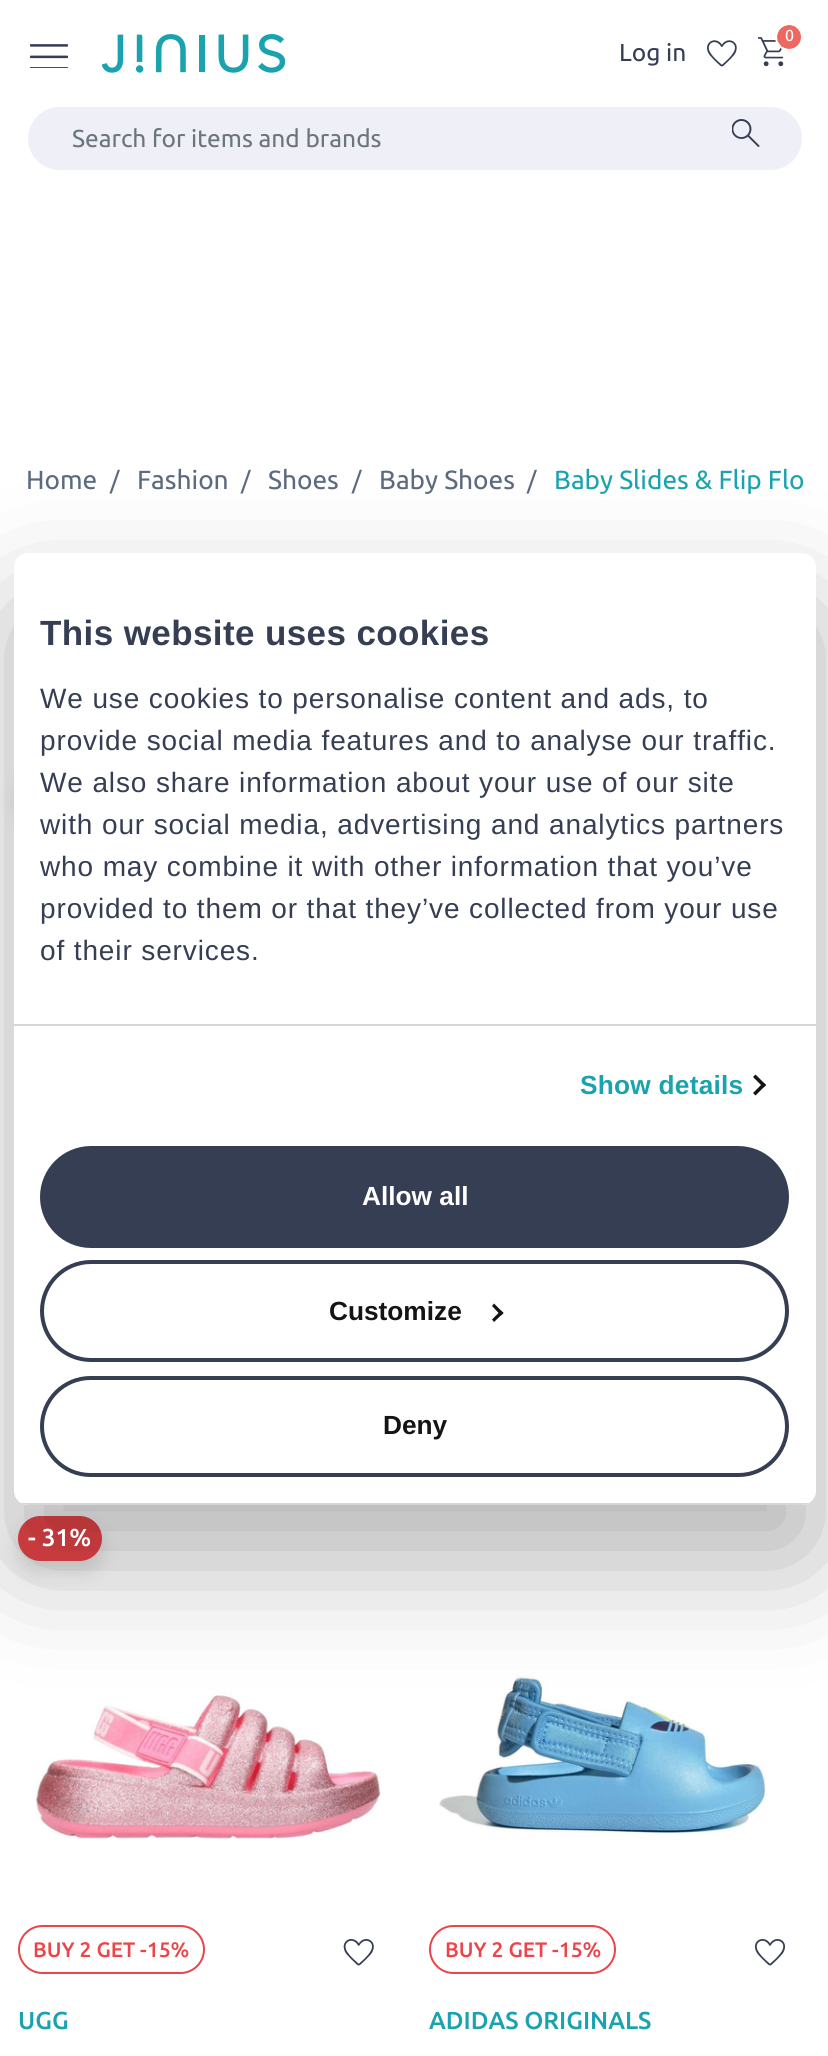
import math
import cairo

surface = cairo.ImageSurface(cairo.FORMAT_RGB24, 828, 2056)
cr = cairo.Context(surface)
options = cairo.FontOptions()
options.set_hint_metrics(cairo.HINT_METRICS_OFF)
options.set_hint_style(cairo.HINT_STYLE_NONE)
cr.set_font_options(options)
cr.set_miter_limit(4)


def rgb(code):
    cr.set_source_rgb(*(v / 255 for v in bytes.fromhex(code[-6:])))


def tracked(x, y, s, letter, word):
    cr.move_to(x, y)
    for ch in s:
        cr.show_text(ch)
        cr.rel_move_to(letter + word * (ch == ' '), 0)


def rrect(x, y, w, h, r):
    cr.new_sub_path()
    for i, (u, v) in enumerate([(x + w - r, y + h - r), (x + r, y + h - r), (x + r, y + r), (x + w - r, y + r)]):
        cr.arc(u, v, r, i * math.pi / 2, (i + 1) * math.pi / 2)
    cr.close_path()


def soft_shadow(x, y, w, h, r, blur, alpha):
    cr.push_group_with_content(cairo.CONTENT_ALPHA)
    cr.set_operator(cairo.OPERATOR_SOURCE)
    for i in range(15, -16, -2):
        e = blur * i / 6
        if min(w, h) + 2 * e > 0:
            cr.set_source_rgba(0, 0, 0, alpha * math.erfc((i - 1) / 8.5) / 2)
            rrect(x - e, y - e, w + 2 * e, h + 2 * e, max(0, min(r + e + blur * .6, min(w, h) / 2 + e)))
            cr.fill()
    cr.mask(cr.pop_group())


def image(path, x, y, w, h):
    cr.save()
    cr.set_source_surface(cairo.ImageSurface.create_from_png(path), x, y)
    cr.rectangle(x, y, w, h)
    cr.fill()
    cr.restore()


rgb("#ffffff")
cr.paint()
image("img/1.png", 30, 44, 38, 24)
image("img/2.png", 102, 34, 183, 39)
image("img/3.png", 758, 37, 26, 30)
rgb("#ed6861")
rrect(777, 25, 25, 24, 12)
cr.fill()
cr.arc(789, 37, 13, 0, 2 * math.pi)
rgb("#ffffff")
cr.stroke()
image("img/4.png", 707, 40, 30, 27)
rgb("#eff0f7")
rrect(28, 107, 774, 63, 31.5)
cr.fill()
image("img/5.png", 732, 119, 28, 28)
rgb("#000000")
soft_shadow(18, 777, 84, 47, 23.5, 10, 0.12)
soft_shadow(18, 1526, 84, 46, 23, 10, 0.12)
rgb("#ea454a")
rrect(18, 1516, 84, 45, 22.5)
cr.fill()
image("img/6.png", 35, 1691, 346, 148)
rrect(19, 1926, 185, 47, 23.5)
cr.stroke()
image("img/7.png", 343, 1939, 31, 27)
image("img/8.png", 439, 1673, 327, 160)
rrect(430, 1926, 185, 47, 23.5)
cr.stroke()
image("img/9.png", 754, 1939, 32, 27)
rgb("#000000")
soft_shadow(14, 609, 802, 952, 14, 59.5, 0.3)
rgb("#ffffff")
rrect(14, 553, 802, 952, 14)
cr.fill()
rgb("#d6d6d6")
cr.rectangle(14, 1024, 802, 2)
cr.fill()
rgb("#141414")
cr.new_path()
cr.move_to(755.5, 1074.5)
cr.line_to(766, 1085)
cr.line_to(763.5, 1087.5)
cr.line_to(753, 1077)
cr.close_path()
cr.fill()
cr.new_path()
cr.move_to(763.5, 1082.5)
cr.line_to(766, 1085)
cr.line_to(755.5, 1095.5)
cr.line_to(753, 1093)
cr.close_path()
cr.fill()
cr.save()
rrect(14, 553, 802, 952, 14)
cr.clip()
rgb("#d6d6d6")
cr.rectangle(14, 1503, 802, 2)
cr.fill()
cr.restore()
rgb("#363e54")
rrect(42, 1148, 745, 98, 49)
cr.fill_preserve()
cr.set_line_width(4)
cr.stroke()
rrect(42, 1262, 745, 98, 49)
cr.stroke()
rgb("#141414")
cr.new_path()
cr.move_to(494, 1303.5)
cr.line_to(503.5, 1313)
cr.line_to(501, 1315.5)
cr.line_to(492, 1306)
cr.close_path()
cr.fill()
cr.new_path()
cr.move_to(501, 1310.5)
cr.line_to(503.5, 1313)
cr.line_to(494, 1322)
cr.line_to(492, 1319.5)
cr.close_path()
cr.fill()
rrect(42, 1378, 745, 97, 48.5)
rgb("#363e54")
cr.stroke()
cr.select_font_face("Ubuntu")
cr.set_font_size(16)
rgb("#ffffff")
cr.move_to(785, 41)
cr.show_text("0")
cr.set_font_size(24.5)
rgb("#363e54")
cr.move_to(619, 61)
cr.show_text("Log in")
rgb("#6c757d")
cr.move_to(72, 147)
cr.show_text("Search for items and brands")
cr.set_font_size(26.25)
rgb("#5b6a7e")
cr.move_to(26, 489)
cr.show_text("Home")
cr.set_font_size(24.5)
cr.move_to(110, 489)
cr.show_text("/")
cr.set_font_size(26.25)
cr.move_to(137, 489)
cr.show_text("Fashion")
cr.set_font_size(24.5)
cr.move_to(241, 489)
cr.show_text("/")
cr.set_font_size(26.25)
cr.move_to(268, 489)
cr.show_text("Shoes")
cr.set_font_size(24.5)
cr.move_to(352, 489)
cr.show_text("/")
cr.set_font_size(26.25)
cr.move_to(379, 489)
cr.show_text("Baby Shoes")
cr.set_font_size(24.5)
cr.move_to(527, 489)
cr.show_text("/")
cr.save()
cr.rectangle(26, 460, 777, 41)
cr.clip()
cr.set_font_size(26.25)
rgb("#1ba2af")
cr.move_to(554, 489)
cr.show_text("Baby Slides & Flip Flo")
cr.restore()
cr.select_font_face("Ubuntu Medium")
rgb("#ffffff")
cr.move_to(28, 1546)
cr.show_text("- 31%")
rgb("#1ba2af")
cr.move_to(18, 2029)
cr.show_text("UGG")
cr.set_font_size(21)
rgb("#ea454a")
cr.move_to(33, 1957)
cr.show_text("BUY 2 GET -15%")
cr.move_to(445, 1957)
cr.show_text("BUY 2 GET -15%")
cr.set_font_size(24.5)
rgb("#1ba2af")
cr.move_to(429, 2029)
cr.show_text("ADIDAS ORIGINALS")
cr.select_font_face("Liberation Sans", cairo.FONT_SLANT_NORMAL, cairo.FONT_WEIGHT_BOLD)
cr.set_font_size(35)
rgb("#363e54")
tracked(40, 645, "This website uses cookies", 0.4, 0)
cr.select_font_face("Liberation Sans")
cr.set_font_size(28)
for x, y, s in [
    (40, 708, "We use cookies to personalise content and ads, to"),
    (40, 750, "provide social media features and to analyse our traffic."),
    (40, 792, "We also share information about your use of our site"),
    (40, 834, "with our social media, advertising and analytics partners"),
    (40, 876, "who may combine it with other information that you’ve"),
    (40, 918, "provided to them or that they’ve collected from your use"),
    (40, 960, "of their services."),
]:
    tracked(x, y, s, 0.88, 0)
cr.select_font_face("Liberation Sans", cairo.FONT_SLANT_NORMAL, cairo.FONT_WEIGHT_BOLD)
cr.set_font_size(26.25)
rgb("#1ba2af")
tracked(580, 1094, "Show details", 0.25, 0)
rgb("#ffffff")
cr.move_to(362, 1205)
cr.show_text("Allow all")
rgb("#141414")
cr.move_to(329, 1320)
cr.show_text("Customize")
cr.move_to(383, 1434)
cr.show_text("Deny")
surface.write_to_png("page.png")
